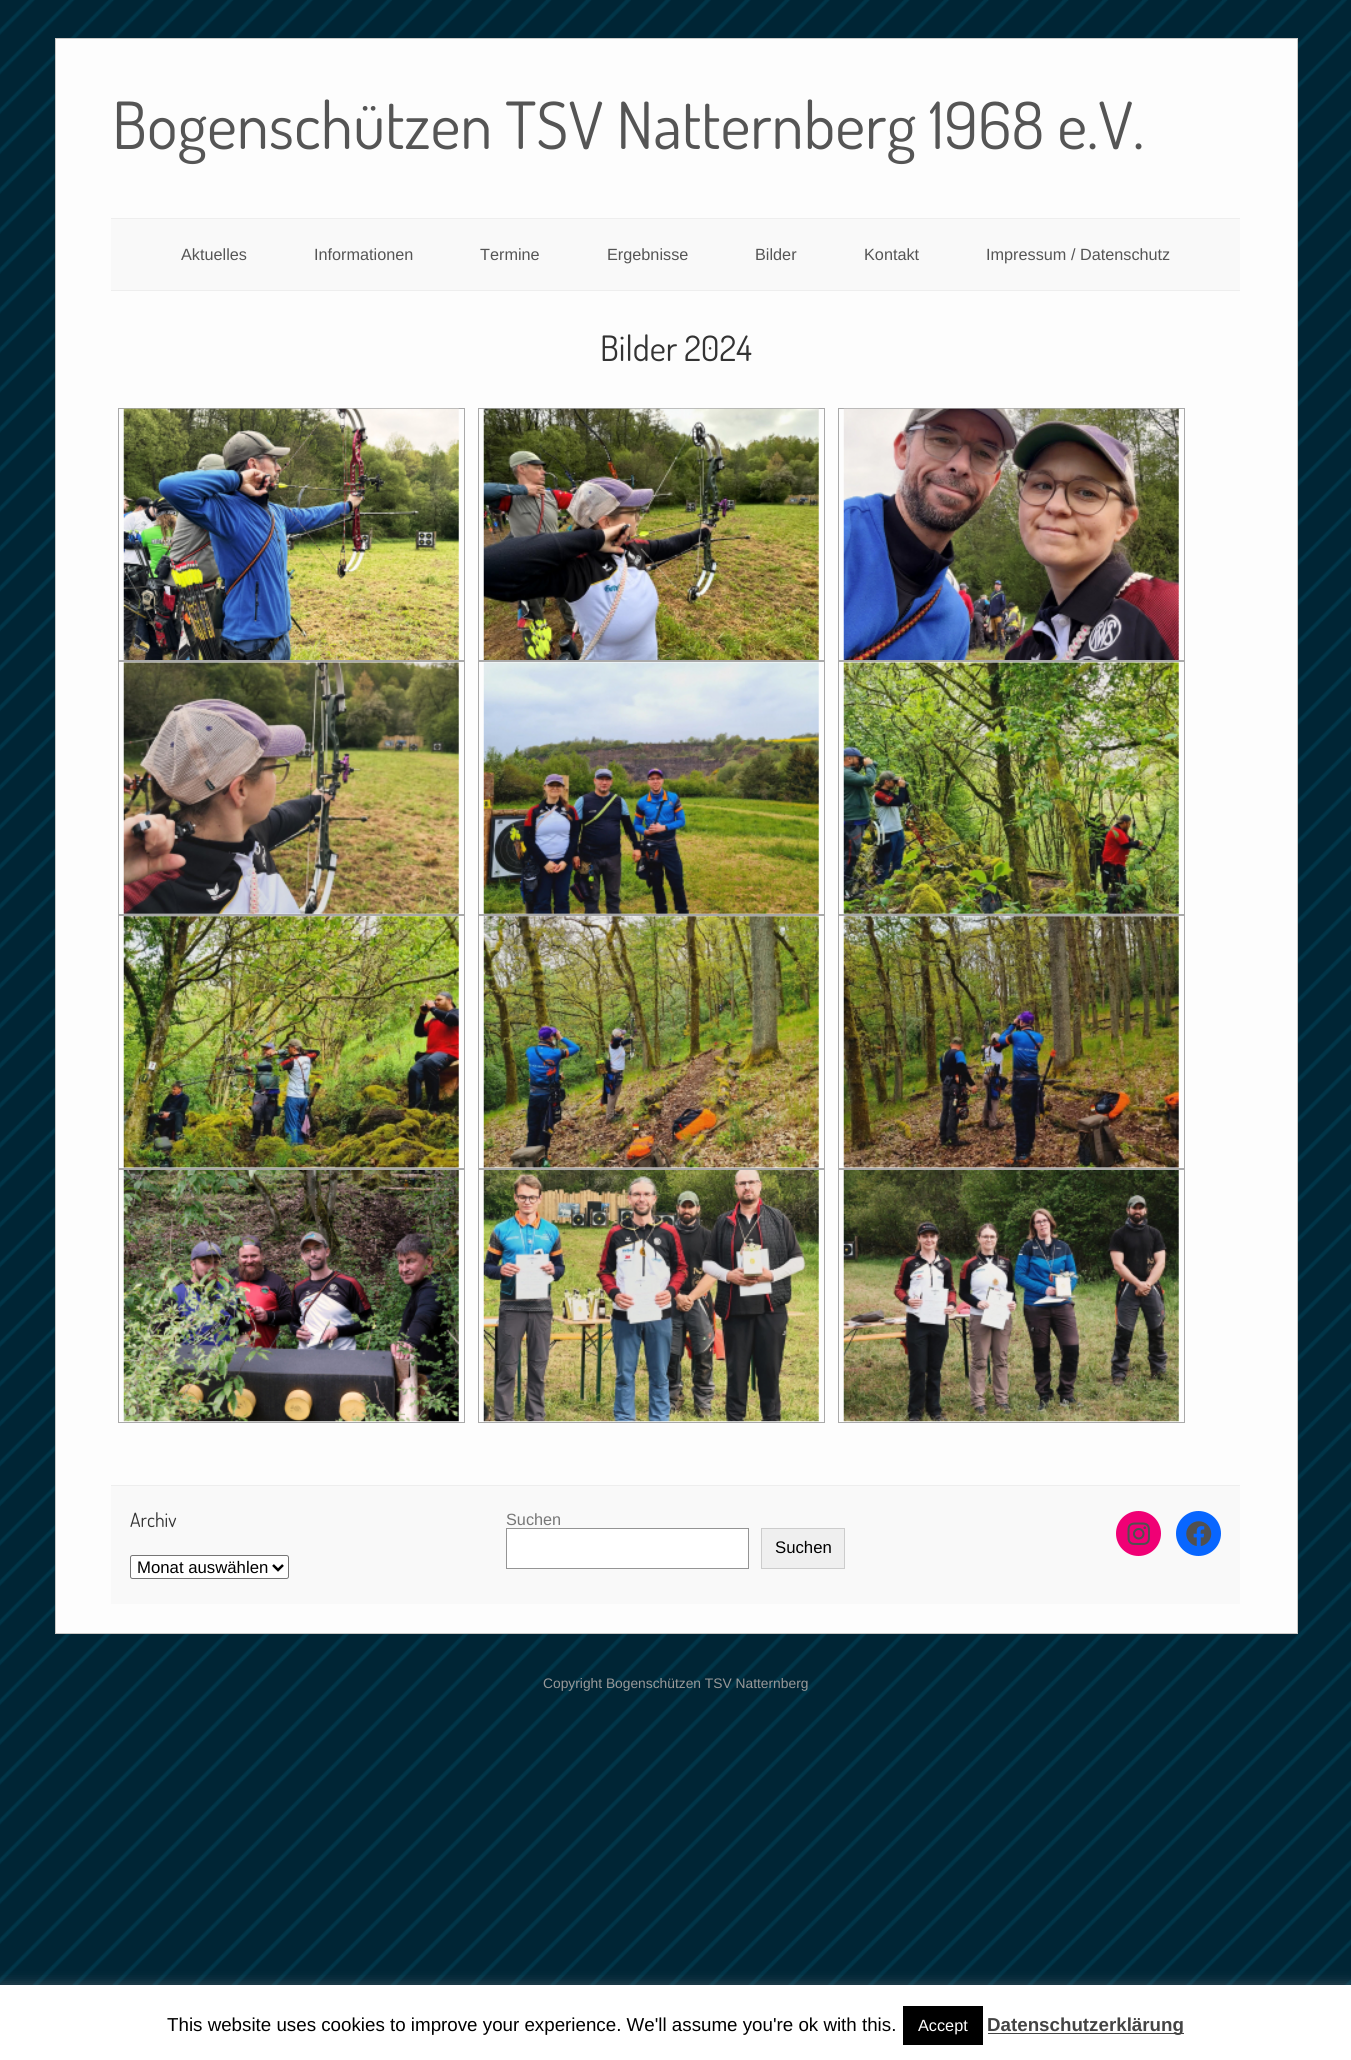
import math
import cairo

surface = cairo.ImageSurface(cairo.FORMAT_RGB24, 1351, 2060)
cr = cairo.Context(surface)
options = cairo.FontOptions()
options.set_hint_metrics(cairo.HINT_METRICS_OFF)
options.set_hint_style(cairo.HINT_STYLE_NONE)
cr.set_font_options(options)
cr.set_miter_limit(4)


def rgb(code):
    cr.set_source_rgb(*(v / 255 for v in bytes.fromhex(code[-6:])))


def rrect(x, y, w, h, r):
    cr.new_sub_path()
    for i, (u, v) in enumerate([(x + w - r, y + h - r), (x + r, y + h - r), (x + r, y + r), (x + w - r, y + r)]):
        cr.arc(u, v, r, i * math.pi / 2, (i + 1) * math.pi / 2)
    cr.close_path()


def soft_shadow(x, y, w, h, r, blur, alpha):
    cr.push_group_with_content(cairo.CONTENT_ALPHA)
    cr.set_operator(cairo.OPERATOR_SOURCE)
    for i in range(15, -16, -2):
        e = blur * i / 6
        if min(w, h) + 2 * e > 0:
            cr.set_source_rgba(0, 0, 0, alpha * math.erfc((i - 1) / 8.5) / 2)
            rrect(x - e, y - e, w + 2 * e, h + 2 * e, max(0, min(r + e + blur * .6, min(w, h) / 2 + e)))
            cr.fill()
    cr.mask(cr.pop_group())


def image(path, x, y, w, h):
    cr.save()
    cr.set_source_surface(cairo.ImageSurface.create_from_png(path), x, y)
    cr.rectangle(x, y, w, h)
    cr.fill()
    cr.restore()


rgb("#ffffff")
cr.paint()
image("img/1.png", 0, 0, 1351, 1985)
rgb("#fdfdfd")
cr.rectangle(55.5, 38.5, 1242, 1595)
cr.fill_preserve()
rgb("#cbc9c7")
cr.set_line_width(1)
cr.stroke()
for x, y, w, h, color in [
    (111, 219, 1129, 71, "#f9f9f9"),
    (111, 218, 1129, 1, "#eeeeee"),
    (111, 290, 1129, 1, "#eeeeee"),
]:
    rgb(color)
    cr.rectangle(x, y, w, h)
    cr.fill()
cr.rectangle(118.5, 408.5, 346, 252)
rgb("#a9a9a9")
cr.stroke()
image("img/2.png", 123, 408, 336, 252)
cr.rectangle(478.5, 408.5, 346, 252)
cr.stroke()
image("img/3.png", 483, 408, 336, 252)
cr.rectangle(838.5, 408.5, 346, 252)
cr.stroke()
image("img/4.png", 843, 408, 336, 252)
cr.rectangle(118.5, 661.5, 346, 253)
cr.stroke()
image("img/5.png", 123, 662, 336, 252)
cr.rectangle(478.5, 661.5, 346, 253)
cr.stroke()
image("img/6.png", 483, 662, 336, 252)
cr.rectangle(838.5, 661.5, 346, 253)
cr.stroke()
image("img/7.png", 843, 662, 336, 252)
cr.rectangle(118.5, 915.5, 346, 253)
cr.stroke()
image("img/8.png", 123, 916, 336, 252)
cr.rectangle(478.5, 915.5, 346, 253)
cr.stroke()
image("img/9.png", 483, 916, 336, 252)
cr.rectangle(838.5, 915.5, 346, 253)
cr.stroke()
image("img/10.png", 843, 916, 336, 252)
cr.rectangle(118.5, 1169.5, 346, 253)
cr.stroke()
image("img/11.png", 123, 1170, 336, 252)
cr.rectangle(478.5, 1169.5, 346, 253)
cr.stroke()
image("img/12.png", 483, 1170, 336, 252)
cr.rectangle(838.5, 1169.5, 346, 253)
cr.stroke()
image("img/13.png", 843, 1170, 336, 252)
rgb("#f9f9f9")
cr.rectangle(111, 1486, 1129, 118)
cr.fill()
rgb("#eeeeee")
cr.rectangle(111, 1485, 1129, 1)
cr.fill()
rgb("#ffffff")
rrect(130.5, 1555.5, 158, 23, 2)
cr.fill_preserve()
rgb("#767676")
cr.stroke()
cr.new_path()
cr.move_to(273, 1565)
cr.line_to(278, 1570)
cr.line_to(283, 1565)
rgb("#000000")
cr.set_line_width(2.5)
cr.stroke()
rgb("#ffffff")
cr.rectangle(506.5, 1528.5, 242, 40)
cr.fill_preserve()
rgb("#949494")
cr.set_line_width(1)
cr.stroke()
rgb("#efefef")
cr.rectangle(761.5, 1528.5, 83, 40)
cr.fill_preserve()
rgb("#cccccc")
cr.stroke()
rgb("#f00075")
cr.arc(1138.5, 1533.5, 22.5, 0, 2 * math.pi)
cr.fill()
image("img/14.png", 1127, 1522, 23, 23)
rgb("#0866ff")
cr.arc(1198.5, 1533.5, 22.5, 0, 2 * math.pi)
cr.fill()
image("img/15.png", 1186, 1521, 26, 26)
rgb("#acabab")
soft_shadow(0, 1984, 1351, 75, 0, 6, 0.3)
for x, y, w, h, color in [
    (0, 1985, 1351, 75, "#ffffff"),
    (903, 2006, 80, 39, "#000000"),
    (988, 2033, 196, 1, "#444444"),
]:
    rgb(color)
    cr.rectangle(x, y, w, h)
    cr.fill()
cr.select_font_face("Dosis")
cr.set_font_size(65)
rgb("#555555")
cr.move_to(112, 149)
cr.show_text("Bogenschützen TSV Natternberg 1968 e.V.")
cr.select_font_face("Liberation Sans")
cr.set_font_size(16.25)
for x, y, s in [
    (181, 260, "Aktuelles"),
    (314, 260, "Informationen"),
    (480, 260, "Termine"),
    (607, 260, "Ergebnisse"),
    (755, 260, "Bilder"),
    (864, 260, "Kontakt"),
    (986, 260, "Impressum / Datenschutz"),
]:
    cr.move_to(x, y)
    cr.show_text(s)
cr.select_font_face("Dosis")
cr.set_font_size(35)
rgb("#333333")
cr.move_to(600, 361)
cr.show_text("Bilder 2024")
cr.set_font_size(19.5)
cr.move_to(130, 1527)
cr.show_text("Archiv")
cr.select_font_face("Liberation Sans")
cr.set_font_size(16.75)
rgb("#000000")
cr.move_to(137, 1573)
cr.show_text("Monat auswählen")
cr.set_font_size(16.25)
rgb("#777777")
cr.move_to(506, 1525)
cr.show_text("Suchen")
cr.set_font_size(16.75)
rgb("#000000")
cr.move_to(775, 1553)
cr.show_text("Suchen")
cr.set_font_size(13.8)
rgb("#999999")
cr.move_to(543, 1688)
cr.show_text("Copyright Bogenschützen TSV Natternberg")
cr.set_font_size(18.75)
rgb("#000000")
cr.move_to(167, 2031)
cr.show_text("This website uses cookies to improve your experience. We'll assume you're ok with this.")
cr.set_font_size(16.25)
rgb("#ffffff")
cr.move_to(918, 2031)
cr.show_text("Accept")
cr.select_font_face("Liberation Sans", cairo.FONT_SLANT_NORMAL, cairo.FONT_WEIGHT_BOLD)
cr.set_font_size(18.75)
rgb("#444444")
cr.move_to(987, 2031)
cr.show_text("Datenschutzerklärung")
surface.write_to_png("page.png")
